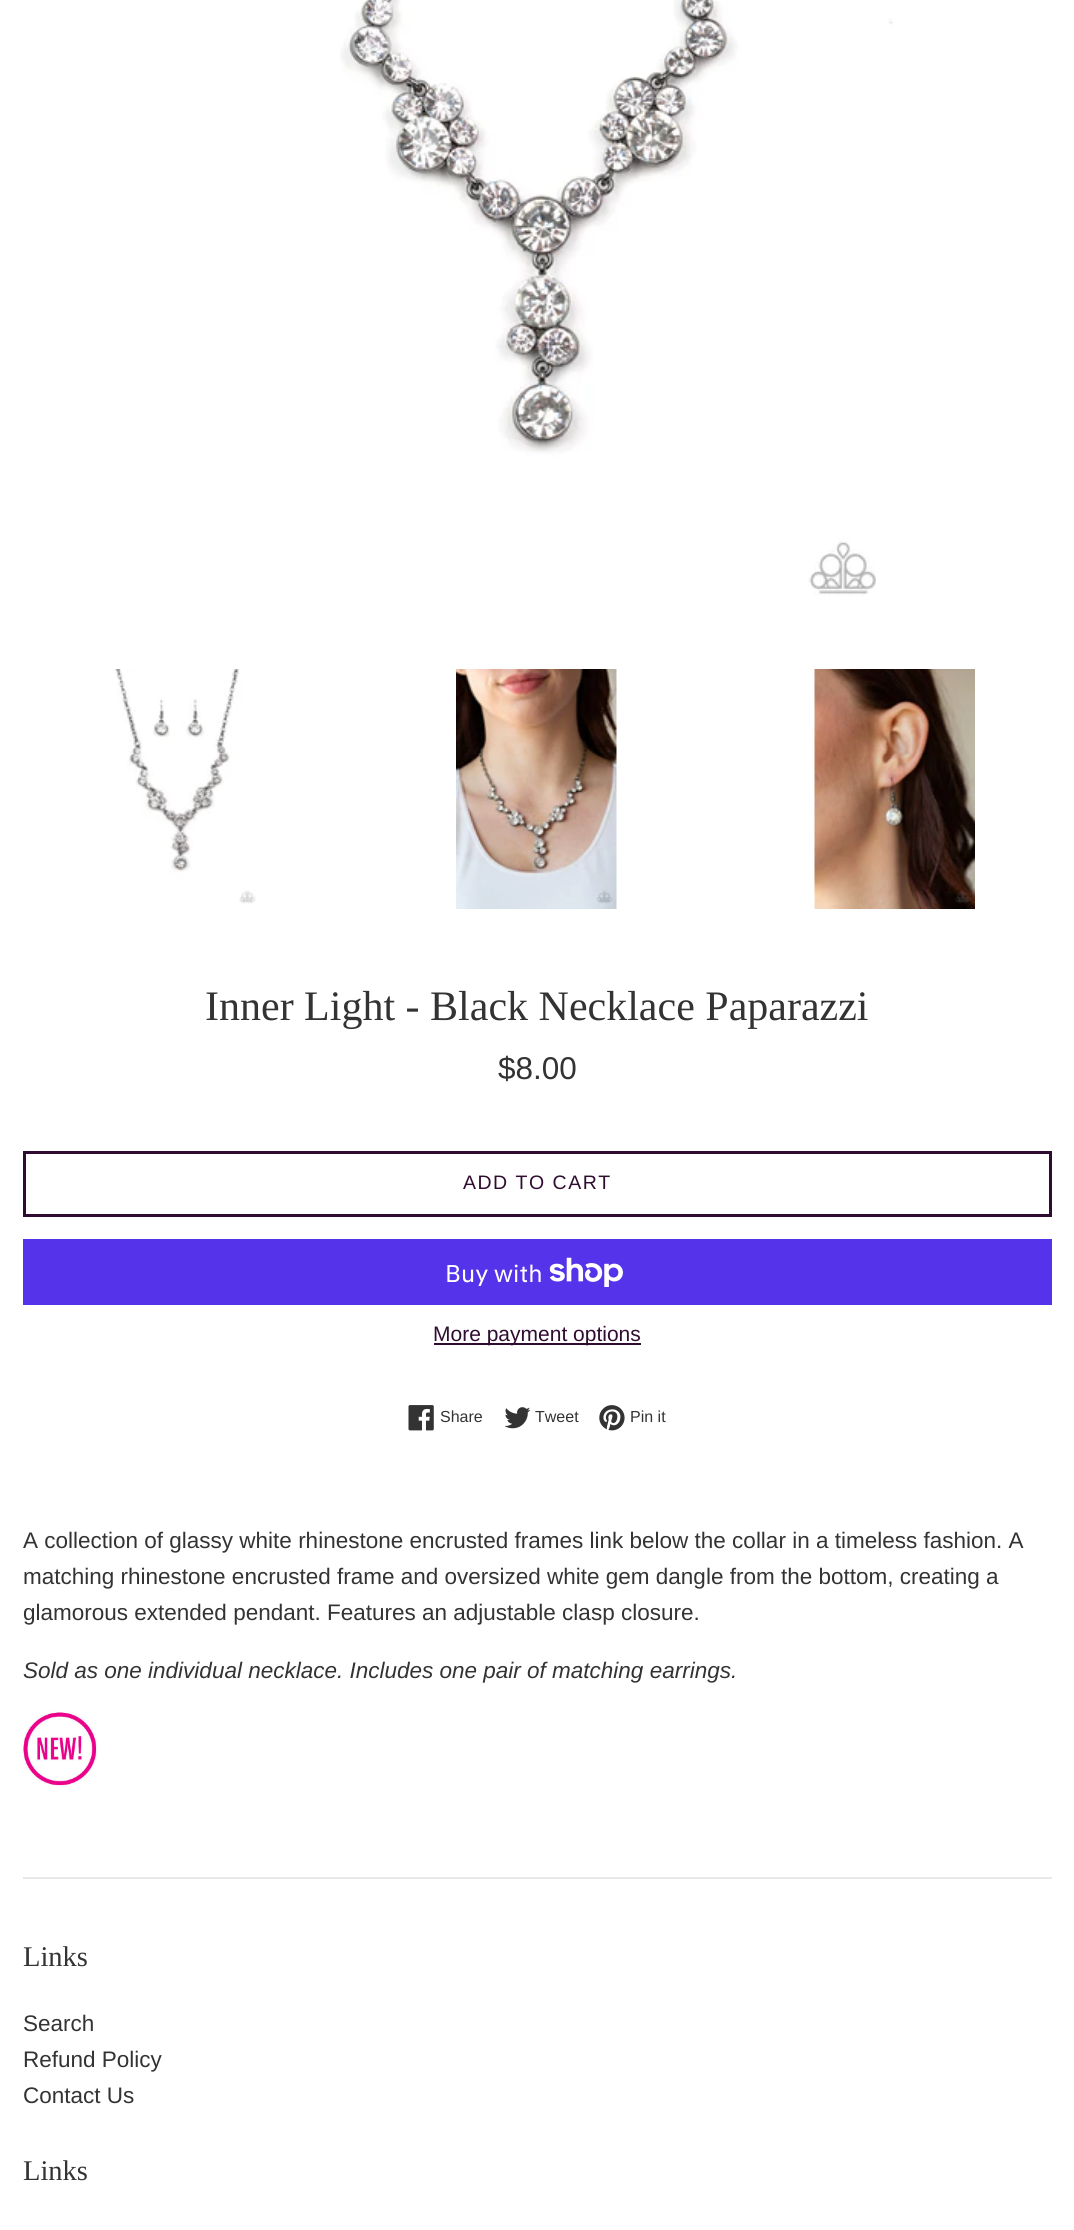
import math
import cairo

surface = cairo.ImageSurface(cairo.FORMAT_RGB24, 1074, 2230)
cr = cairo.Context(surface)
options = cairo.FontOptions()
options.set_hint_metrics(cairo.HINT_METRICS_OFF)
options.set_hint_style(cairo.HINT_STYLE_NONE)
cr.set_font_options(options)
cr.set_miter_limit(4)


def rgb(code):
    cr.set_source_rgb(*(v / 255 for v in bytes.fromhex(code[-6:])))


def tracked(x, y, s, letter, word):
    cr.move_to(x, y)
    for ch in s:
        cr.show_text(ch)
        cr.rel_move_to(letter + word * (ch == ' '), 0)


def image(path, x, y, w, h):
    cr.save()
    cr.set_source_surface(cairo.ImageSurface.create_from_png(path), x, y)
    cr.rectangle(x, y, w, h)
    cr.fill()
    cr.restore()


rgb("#ffffff")
cr.paint()
image("img/1.png", 340, 0, 553, 596)
image("img/2.png", 115, 669, 141, 235)
image("img/3.png", 456, 669, 161, 240)
image("img/4.png", 814, 669, 161, 240)
cr.rectangle(24.5, 1152.5, 1026, 63)
rgb("#300d30")
cr.set_line_width(3)
cr.stroke()
rgb("#5433eb")
cr.rectangle(23, 1239, 1029, 66)
cr.fill()
image("img/5.png", 549, 1257, 74, 30)
rgb("#300d30")
cr.rectangle(434, 1343, 207, 2)
cr.fill()
image("img/6.png", 408, 1405, 26, 26)
image("img/7.png", 504, 1407, 27, 22)
image("img/8.png", 599, 1405, 26, 26)
image("img/9.png", 22, 1711, 76, 76)
rgb("#e8e8e8")
cr.rectangle(23, 1877, 1029, 2)
cr.fill()
cr.select_font_face("Liberation Serif")
cr.set_font_size(42)
rgb("#333333")
cr.move_to(205, 1020)
cr.show_text("Inner Light - Black Necklace Paparazzi")
cr.select_font_face("Liberation Sans")
cr.set_font_size(31.5)
cr.move_to(498, 1079)
cr.show_text("$8.00")
cr.set_font_size(19.5)
rgb("#300d30")
tracked(463, 1189, "ADD TO CART", 1.5, 0)
cr.select_font_face("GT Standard")
cr.set_font_size(24)
rgb("#ffffff")
cr.move_to(445, 1282)
cr.show_text("Buy with")
cr.select_font_face("Liberation Sans")
cr.set_font_size(21)
rgb("#300d30")
cr.move_to(433, 1341)
cr.show_text("More payment options")
cr.set_font_size(16)
rgb("#333333")
for x, y, s in [
    (440, 1422, "Share"),
    (535, 1422, "Tweet"),
    (630, 1422, "Pin it"),
]:
    cr.move_to(x, y)
    cr.show_text(s)
cr.set_font_size(22.5)
for x, y, s in [
    (23, 1548, "A collection of glassy white rhinestone encrusted frames link below the collar in a timeless fashion. A"),
    (23, 1584, "matching rhinestone encrusted frame and oversized white gem dangle from the bottom, creating a"),
    (23, 1620, "glamorous extended pendant. Features an adjustable clasp closure."),
]:
    cr.move_to(x, y)
    cr.show_text(s)
cr.select_font_face("Liberation Sans", cairo.FONT_SLANT_ITALIC)
cr.move_to(23, 1678)
cr.show_text("Sold as one individual necklace. Includes one pair of matching earrings.")
cr.select_font_face("Liberation Serif")
cr.set_font_size(28.5)
cr.move_to(23, 1966)
cr.show_text("Links")
cr.select_font_face("Liberation Sans")
cr.set_font_size(22.5)
for x, y, s in [
    (23, 2031, "Search"),
    (23, 2067, "Refund Policy"),
    (23, 2103, "Contact Us"),
]:
    cr.move_to(x, y)
    cr.show_text(s)
cr.select_font_face("Liberation Serif")
cr.set_font_size(28.5)
cr.move_to(23, 2180)
cr.show_text("Links")
surface.write_to_png("page.png")
